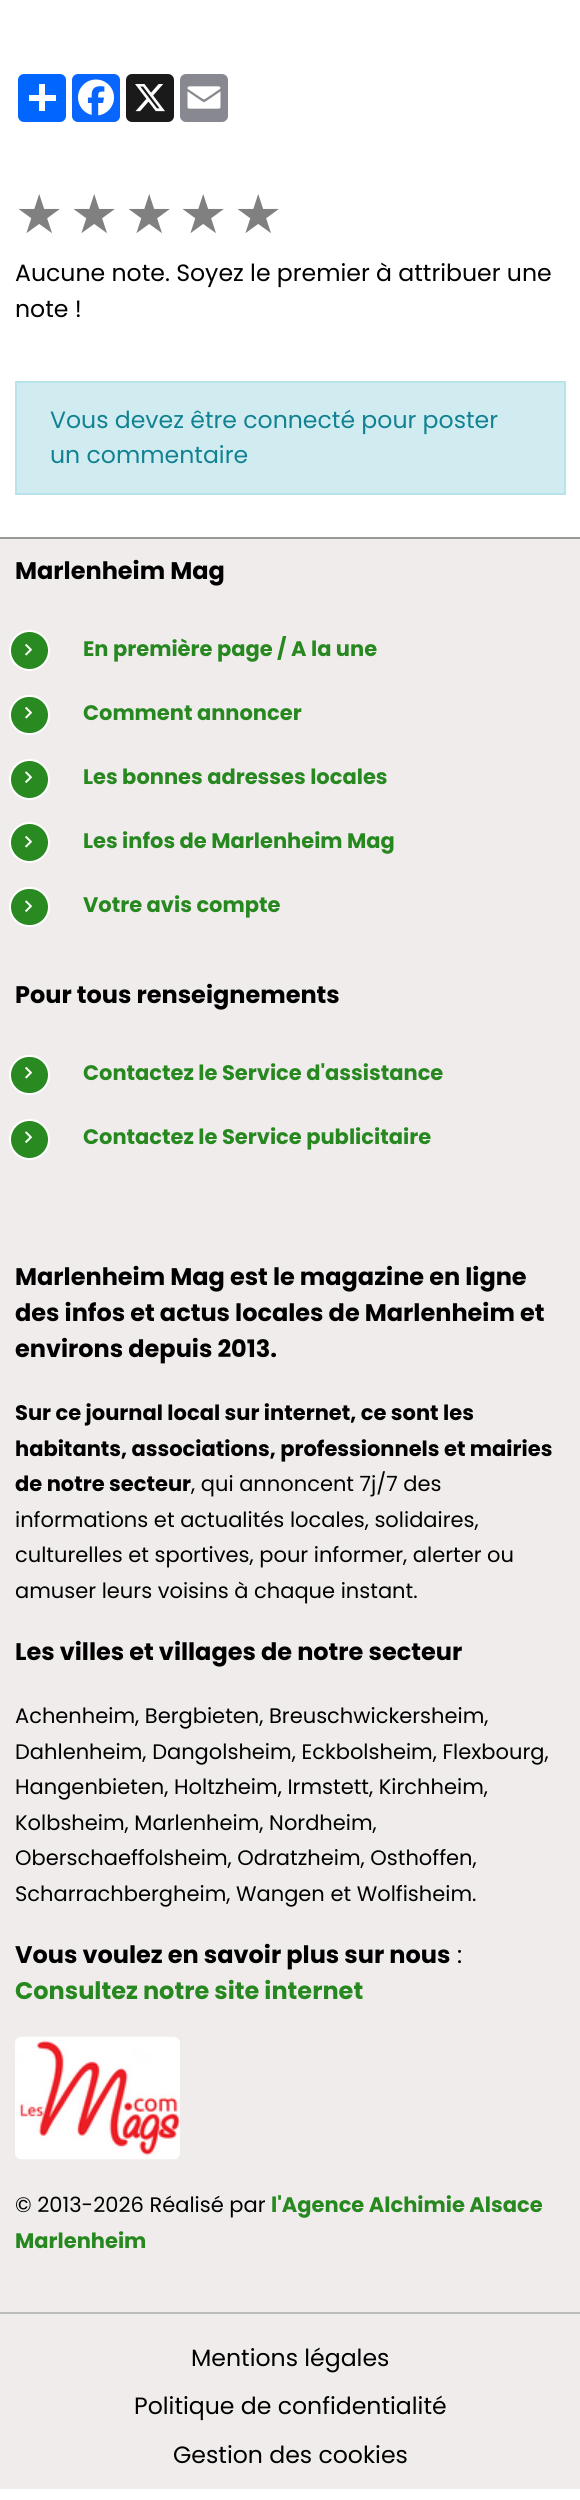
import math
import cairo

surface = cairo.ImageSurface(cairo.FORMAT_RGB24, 580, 2500)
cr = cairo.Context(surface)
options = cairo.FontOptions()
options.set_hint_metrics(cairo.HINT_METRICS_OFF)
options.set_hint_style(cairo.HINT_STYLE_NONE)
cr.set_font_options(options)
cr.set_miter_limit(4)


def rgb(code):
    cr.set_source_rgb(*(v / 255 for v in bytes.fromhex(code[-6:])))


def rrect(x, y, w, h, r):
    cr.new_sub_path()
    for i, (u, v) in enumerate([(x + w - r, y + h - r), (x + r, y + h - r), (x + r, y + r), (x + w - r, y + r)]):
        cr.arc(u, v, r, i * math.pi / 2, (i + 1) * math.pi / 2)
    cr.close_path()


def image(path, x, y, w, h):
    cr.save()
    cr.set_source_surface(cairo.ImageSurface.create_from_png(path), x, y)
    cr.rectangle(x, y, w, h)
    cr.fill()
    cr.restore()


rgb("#ffffff")
cr.paint()
rgb("#0166ff")
rrect(18, 74, 48, 48, 6)
cr.fill()
rgb("#ffffff")
cr.rectangle(39, 84, 6, 27)
cr.fill()
cr.rectangle(29, 95, 27, 6)
cr.fill()
rgb("#0866ff")
rrect(72, 74, 48, 48, 6)
cr.fill()
image("img/1.png", 78, 79, 36, 37)
rgb("#1a1a1a")
rrect(126, 74, 48, 48, 6)
cr.fill()
image("img/2.png", 135, 84, 30, 28)
rgb("#888990")
rrect(180, 74, 48, 48, 6)
cr.fill()
image("img/3.png", 187, 86, 34, 23)
rgb("#d1ecf1")
cr.rectangle(16, 382, 549, 112)
cr.fill_preserve()
rgb("#b9e3ea")
cr.stroke()
rgb("#f0ecec")
cr.rectangle(0, 539, 580, 1950)
cr.fill()
rgb("#999999")
cr.rectangle(0, 537, 580, 2)
cr.fill()
rgb("#288a21")
cr.arc(29.5, 650.5, 19.5, 0, 2 * math.pi)
cr.fill_preserve()
rgb("#ffffff")
cr.stroke()
image("img/4.png", 25, 643, 8, 13)
rgb("#288a21")
rrect(10, 696, 39, 38, 19)
cr.fill_preserve()
rgb("#ffffff")
cr.stroke()
image("img/4.png", 25, 706, 8, 13)
rgb("#288a21")
cr.arc(29.5, 779.5, 19.5, 0, 2 * math.pi)
cr.fill_preserve()
rgb("#ffffff")
cr.stroke()
image("img/5.png", 25, 771, 8, 12)
rgb("#288a21")
cr.arc(29.5, 842.5, 19.5, 0, 2 * math.pi)
cr.fill_preserve()
rgb("#ffffff")
cr.stroke()
image("img/4.png", 25, 835, 8, 13)
rgb("#288a21")
rrect(10, 888, 39, 38, 19)
cr.fill_preserve()
rgb("#ffffff")
cr.stroke()
image("img/5.png", 25, 900, 8, 12)
rgb("#288a21")
rrect(10, 1056, 39, 38, 19)
cr.fill_preserve()
rgb("#ffffff")
cr.stroke()
image("img/4.png", 25, 1066, 8, 13)
rgb("#288a21")
cr.arc(29.5, 1139.5, 19.5, 0, 2 * math.pi)
cr.fill_preserve()
rgb("#ffffff")
cr.stroke()
image("img/5.png", 25, 1131, 8, 12)
image("img/6.png", 15, 2036, 165, 124)
rgb("#bcbcbc")
cr.rectangle(0, 2312, 580, 2)
cr.fill()
cr.select_font_face("DejaVu Sans")
cr.set_font_size(54)
rgb("#808080")
for x, y, s in [
    (15, 233, "★"),
    (70, 233, "★"),
    (125, 233, "★"),
    (179, 233, "★"),
    (234, 233, "★"),
]:
    cr.move_to(x, y)
    cr.show_text(s)
cr.select_font_face("Poppins")
cr.set_font_size(23.6)
rgb("#000000")
cr.move_to(15, 281)
cr.show_text("Aucune note. Soyez le premier à attribuer une")
cr.move_to(15, 317)
cr.show_text("note !")
rgb("#128293")
cr.move_to(50, 428)
cr.show_text("Vous devez être connecté pour poster")
cr.move_to(50, 463)
cr.show_text("un commentaire")
cr.select_font_face("Poppins", cairo.FONT_SLANT_NORMAL, cairo.FONT_WEIGHT_BOLD)
cr.set_font_size(24)
rgb("#000000")
cr.move_to(15, 579)
cr.show_text("Marlenheim Mag")
cr.set_font_size(21)
rgb("#278820")
for x, y, s in [
    (83, 656, "En première page / A la une"),
    (83, 720, "Comment annoncer"),
    (83, 784, "Les bonnes adresses locales"),
    (83, 848, "Les infos de Marlenheim Mag"),
    (83, 912, "Votre avis compte"),
]:
    cr.move_to(x, y)
    cr.show_text(s)
cr.set_font_size(24)
rgb("#000000")
cr.move_to(15, 1003)
cr.show_text("Pour tous renseignements")
cr.set_font_size(21)
rgb("#278820")
cr.move_to(83, 1080)
cr.show_text("Contactez le Service d'assistance")
cr.move_to(83, 1144)
cr.show_text("Contactez le Service publicitaire")
cr.set_font_size(24)
rgb("#000000")
for x, y, s in [
    (15, 1285, "Marlenheim Mag est le magazine en ligne"),
    (15, 1321, "des infos et actus locales de Marlenheim et"),
    (15, 1357, "environs depuis 2013."),
]:
    cr.move_to(x, y)
    cr.show_text(s)
cr.set_font_size(21)
for x, y, s in [
    (15, 1420, "Sur ce journal local sur internet, ce sont les"),
    (15, 1456, "habitants, associations, professionnels et mairies"),
    (15, 1491, "de notre secteur"),
]:
    cr.move_to(x, y)
    cr.show_text(s)
cr.select_font_face("Poppins")
for x, y, s in [
    (191, 1491, ", qui annoncent 7j/7 des"),
    (15, 1527, "informations et actualités locales, solidaires,"),
    (15, 1562, "culturelles et sportives, pour informer, alerter ou"),
    (15, 1598, "amuser leurs voisins à chaque instant."),
]:
    cr.move_to(x, y)
    cr.show_text(s)
cr.select_font_face("Poppins", cairo.FONT_SLANT_NORMAL, cairo.FONT_WEIGHT_BOLD)
cr.set_font_size(24)
cr.move_to(15, 1660)
cr.show_text("Les villes et villages de notre secteur")
cr.select_font_face("Poppins")
cr.set_font_size(21)
for x, y, s in [
    (15, 1723, "Achenheim, Bergbieten, Breuschwickersheim,"),
    (15, 1759, "Dahlenheim, Dangolsheim, Eckbolsheim, Flexbourg,"),
    (15, 1794, "Hangenbieten, Holtzheim, Irmstett, Kirchheim,"),
    (15, 1830, "Kolbsheim, Marlenheim, Nordheim,"),
    (15, 1865, "Oberschaeffolsheim, Odratzheim, Osthoffen,"),
    (15, 1901, "Scharrachbergheim, Wangen et Wolfisheim."),
]:
    cr.move_to(x, y)
    cr.show_text(s)
cr.select_font_face("Poppins", cairo.FONT_SLANT_NORMAL, cairo.FONT_WEIGHT_BOLD)
cr.set_font_size(24)
cr.move_to(15, 1963)
cr.show_text("Vous voulez en savoir plus sur nous")
cr.select_font_face("Poppins")
cr.move_to(457, 1963)
cr.show_text(":")
cr.select_font_face("Poppins", cairo.FONT_SLANT_NORMAL, cairo.FONT_WEIGHT_BOLD)
rgb("#278820")
cr.move_to(15, 1999)
cr.show_text("Consultez notre site internet")
cr.select_font_face("Poppins")
cr.set_font_size(21)
rgb("#000000")
cr.move_to(15, 2212)
cr.show_text("© 2013-2026 Réalisé par")
cr.select_font_face("Poppins", cairo.FONT_SLANT_NORMAL, cairo.FONT_WEIGHT_BOLD)
rgb("#278820")
cr.move_to(271, 2212)
cr.show_text("l'Agence Alchimie Alsace")
cr.move_to(15, 2248)
cr.show_text("Marlenheim")
cr.select_font_face("Poppins")
cr.set_font_size(23.6)
rgb("#000000")
for x, y, s in [
    (191, 2366, "Mentions légales"),
    (134, 2414, "Politique de confidentialité"),
    (173, 2463, "Gestion des cookies"),
]:
    cr.move_to(x, y)
    cr.show_text(s)
surface.write_to_png("page.png")
